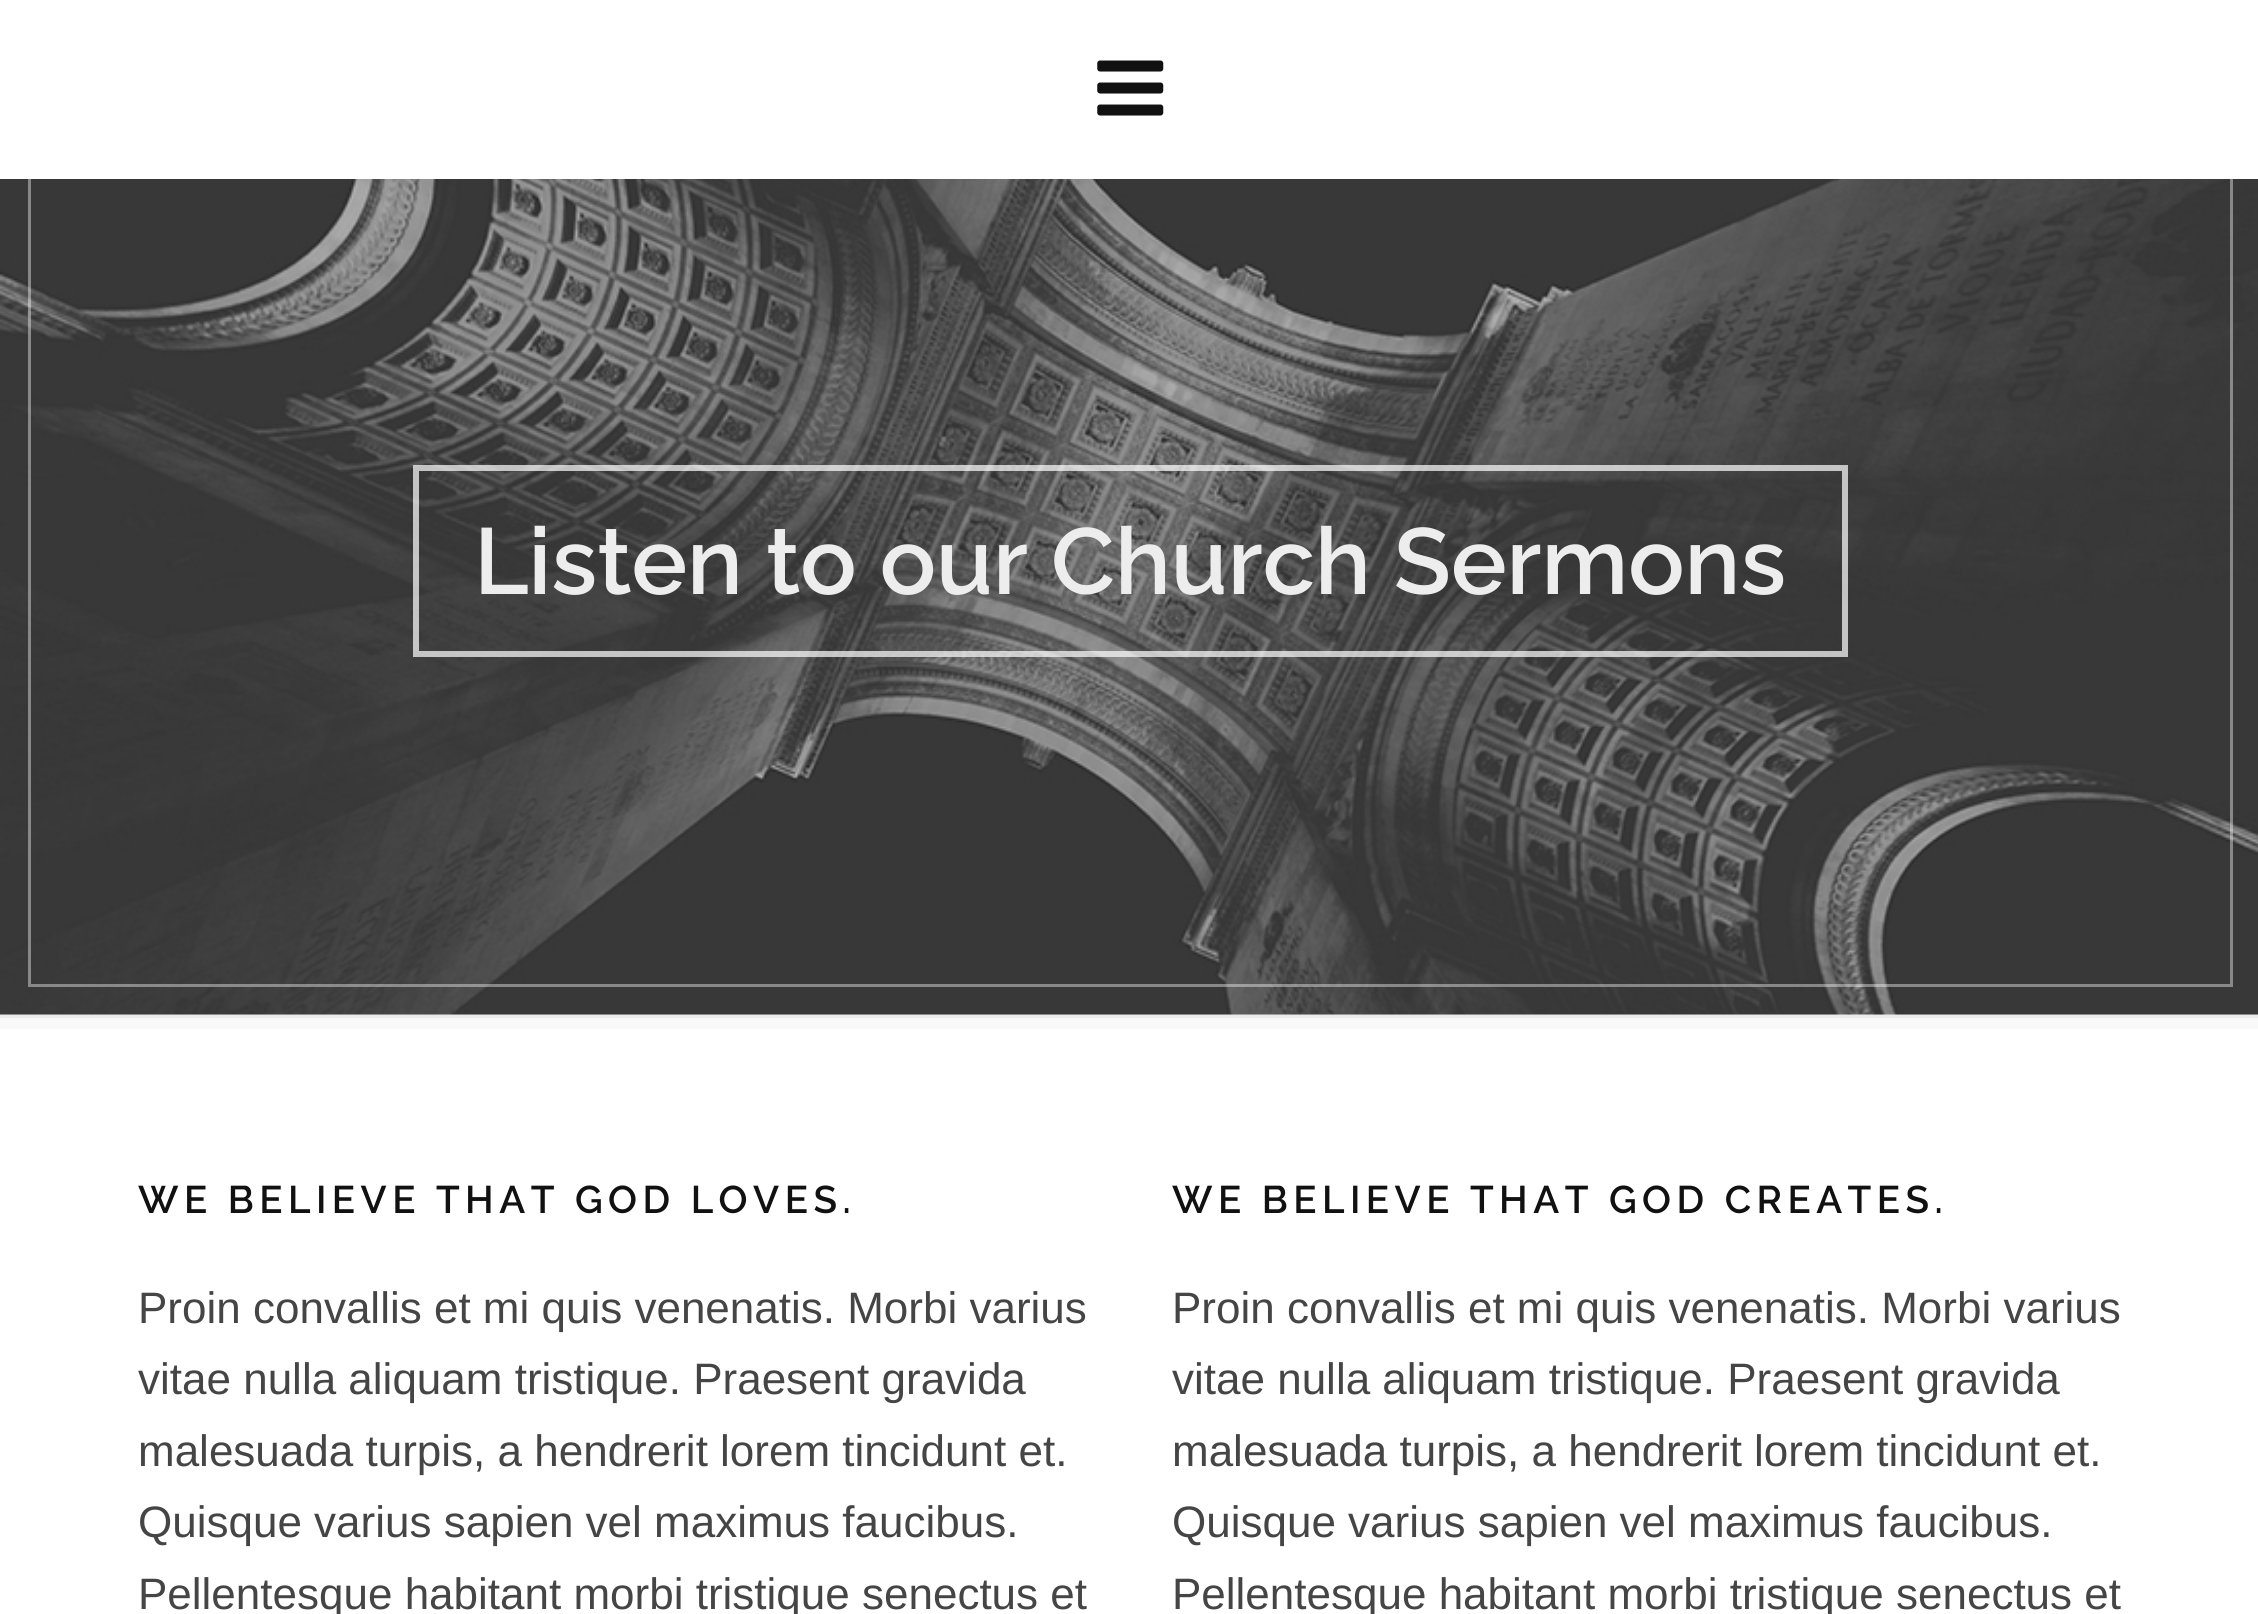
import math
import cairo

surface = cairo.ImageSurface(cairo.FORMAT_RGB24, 2258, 1614)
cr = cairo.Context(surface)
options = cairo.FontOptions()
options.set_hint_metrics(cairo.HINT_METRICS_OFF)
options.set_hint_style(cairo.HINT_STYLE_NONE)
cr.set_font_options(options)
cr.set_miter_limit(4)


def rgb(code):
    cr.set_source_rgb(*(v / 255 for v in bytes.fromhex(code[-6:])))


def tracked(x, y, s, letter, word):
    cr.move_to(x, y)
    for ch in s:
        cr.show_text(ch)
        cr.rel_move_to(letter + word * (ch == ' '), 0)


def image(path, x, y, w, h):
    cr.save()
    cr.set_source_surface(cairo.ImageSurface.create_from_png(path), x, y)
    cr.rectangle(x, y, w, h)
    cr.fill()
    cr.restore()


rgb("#f9f9f9")
cr.paint()
rgb("#ffffff")
cr.rectangle(0, 1014, 2258, 1)
cr.fill()
image("img/2.png", 0, 179, 2258, 836)
cr.rectangle(416, 468, 1429, 186)
cr.set_source_rgba(1, 1, 1, 0.7)
cr.set_line_width(6)
cr.stroke()
cr.rectangle(29.5, 136.5, 2202, 849)
cr.set_source_rgba(1, 1, 1, 0.4)
cr.set_line_width(3)
cr.stroke()
rgb("#ffffff")
cr.rectangle(0, 0, 2258, 179)
cr.fill()
image("img/1.png", 1097, 60, 67, 56)
rgb("#ebebeb")
cr.rectangle(0, 1015, 2258, 3)
cr.fill()
rgb("#ffffff")
cr.rectangle(0, 1029, 2258, 585)
cr.fill()
cr.select_font_face("Raleway SemiBold")
cr.set_font_size(93.5)
rgb("#ededed")
cr.move_to(474, 594)
cr.show_text("Listen to our Church Sermons")
cr.set_font_size(38.5)
rgb("#111111")
tracked(138, 1213, "WE BELIEVE THAT GOD LOVES.", 5.5, 0)
cr.select_font_face("Liberation Sans")
cr.set_font_size(44)
rgb("#454545")
for x, y, s in [
    (138, 1323, "Proin convallis et mi quis venenatis. Morbi varius"),
    (138, 1394, "vitae nulla aliquam tristique. Praesent gravida"),
    (138, 1466, "malesuada turpis, a hendrerit lorem tincidunt et."),
    (138, 1537, "Quisque varius sapien vel maximus faucibus."),
    (138, 1609, "Pellentesque habitant morbi tristique senectus et"),
]:
    cr.move_to(x, y)
    cr.show_text(s)
cr.select_font_face("Raleway SemiBold")
cr.set_font_size(38.5)
rgb("#111111")
tracked(1172, 1213, "WE BELIEVE THAT GOD CREATES.", 5.5, 0)
cr.select_font_face("Liberation Sans")
cr.set_font_size(44)
rgb("#454545")
for x, y, s in [
    (1172, 1323, "Proin convallis et mi quis venenatis. Morbi varius"),
    (1172, 1394, "vitae nulla aliquam tristique. Praesent gravida"),
    (1172, 1466, "malesuada turpis, a hendrerit lorem tincidunt et."),
    (1172, 1537, "Quisque varius sapien vel maximus faucibus."),
    (1172, 1609, "Pellentesque habitant morbi tristique senectus et"),
]:
    cr.move_to(x, y)
    cr.show_text(s)
surface.write_to_png("page.png")
